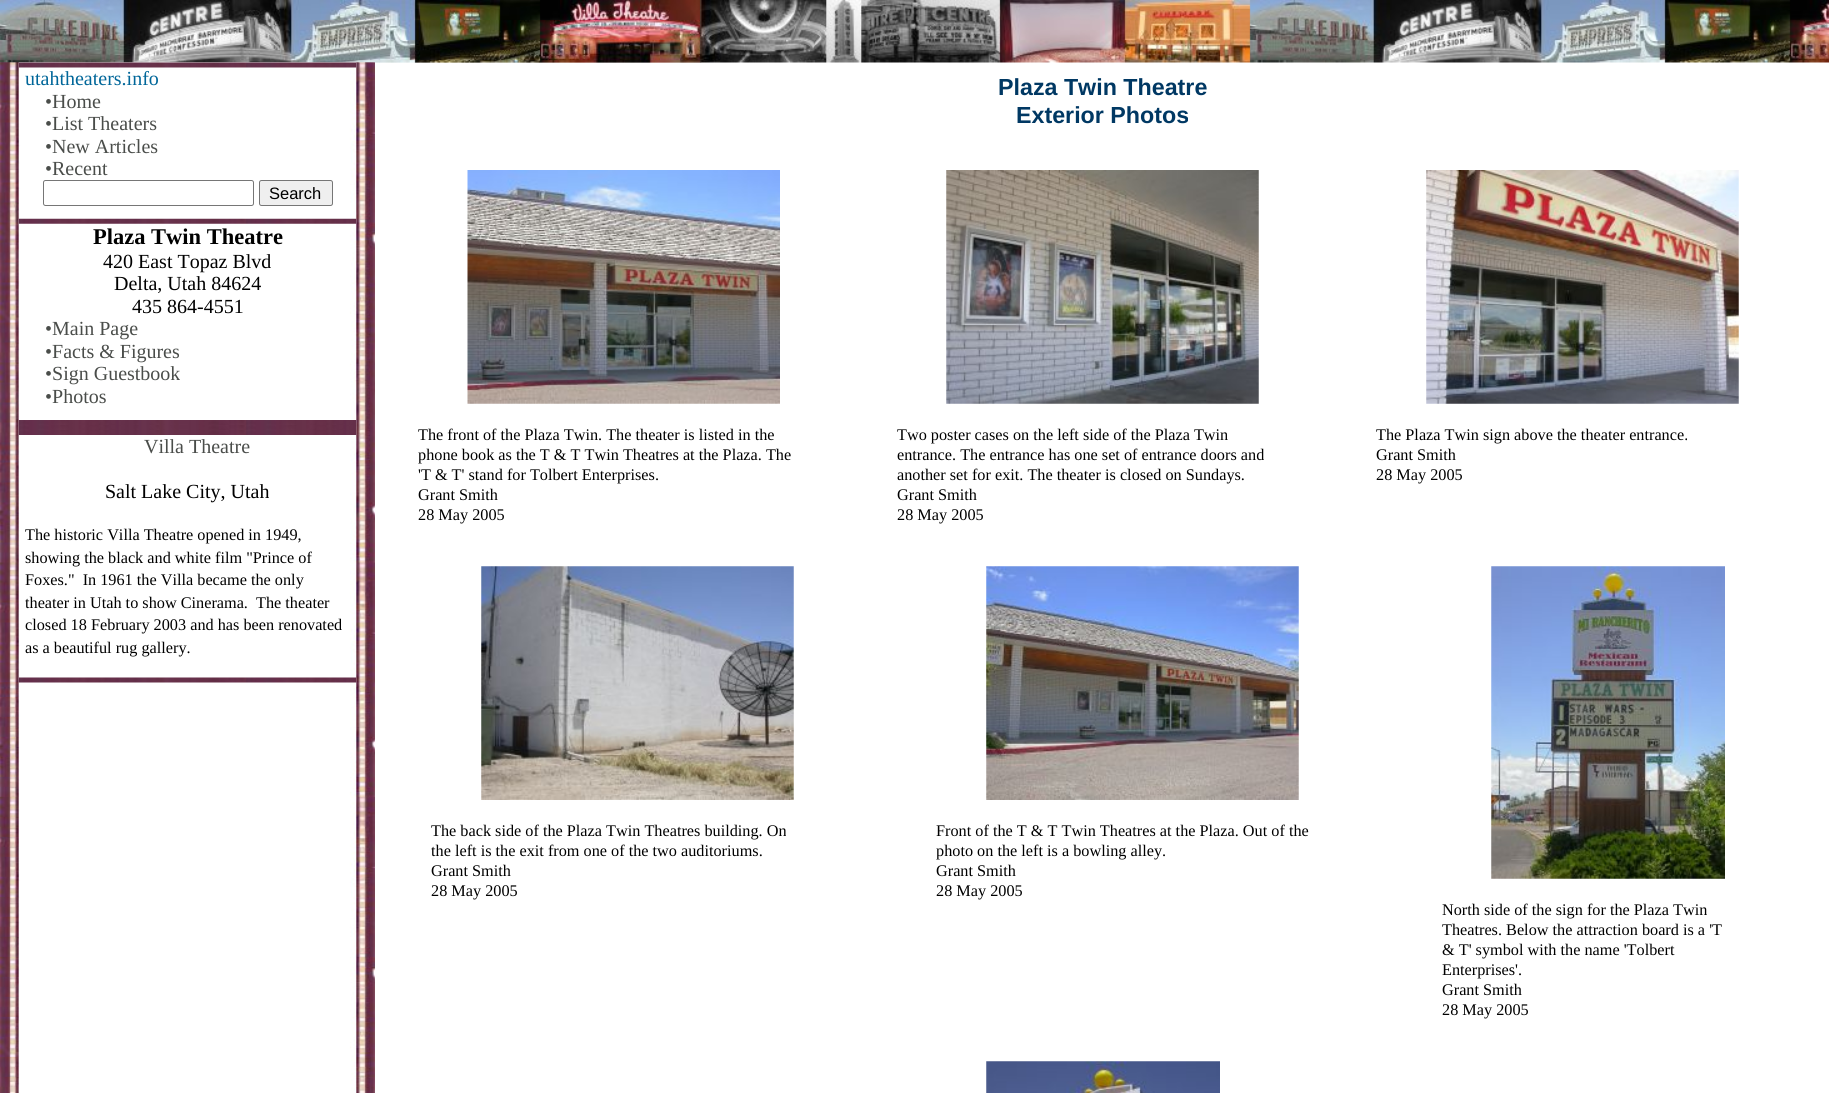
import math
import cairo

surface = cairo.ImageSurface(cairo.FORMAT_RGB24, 1829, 1093)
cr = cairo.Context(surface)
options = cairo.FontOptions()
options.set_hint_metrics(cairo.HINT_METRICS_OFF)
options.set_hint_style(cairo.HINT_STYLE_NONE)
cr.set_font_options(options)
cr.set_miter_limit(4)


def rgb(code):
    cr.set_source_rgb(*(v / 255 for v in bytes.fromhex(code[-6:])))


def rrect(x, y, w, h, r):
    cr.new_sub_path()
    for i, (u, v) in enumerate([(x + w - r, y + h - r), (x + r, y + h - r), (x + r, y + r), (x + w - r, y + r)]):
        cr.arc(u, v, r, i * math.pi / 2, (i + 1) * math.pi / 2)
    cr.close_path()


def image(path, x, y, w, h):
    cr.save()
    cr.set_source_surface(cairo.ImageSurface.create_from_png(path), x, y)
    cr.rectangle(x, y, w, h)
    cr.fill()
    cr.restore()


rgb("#ffffff")
cr.paint()
image("img/1.png", 0, 62, 375, 1031)
image("img/2.png", 0, 0, 1829, 63)
image("img/3.png", 0, 0, 702, 63)
image("img/4.png", 0, 62, 375, 621)
image("img/5.png", 18, 62, 339, 6)
rrect(43.5, 180.5, 210, 25, 2)
rgb("#767676")
cr.set_line_width(1)
cr.stroke()
rgb("#efefef")
rrect(259.5, 180.5, 73, 25, 2)
cr.fill_preserve()
rgb("#767676")
cr.stroke()
image("img/6.png", 18, 218, 339, 6)
image("img/7.png", 18, 420, 339, 5)
image("img/8.png", 18, 425, 339, 5)
image("img/9.png", 18, 430, 339, 5)
image("img/10.png", 18, 677, 339, 6)
image("img/11.png", 467, 170, 313, 234)
image("img/12.png", 946, 170, 313, 234)
image("img/13.png", 1426, 170, 313, 234)
image("img/14.png", 481, 566, 313, 234)
image("img/15.png", 986, 566, 313, 234)
image("img/16.png", 1491, 566, 234, 313)
image("img/17.png", 986, 1061, 234, 32)
cr.select_font_face("Liberation Serif")
cr.set_font_size(20)
rgb("#006699")
cr.move_to(25, 85)
cr.show_text("utahtheaters.info")
rgb("#4a4d4a")
for x, y, s in [
    (45, 108, "•Home"),
    (45, 130, "•List Theaters"),
    (45, 153, "•New Articles"),
    (45, 175, "•Recent"),
]:
    cr.move_to(x, y)
    cr.show_text(s)
cr.select_font_face("Liberation Sans")
cr.set_font_size(16.5)
rgb("#000000")
cr.move_to(269, 199)
cr.show_text("Search")
cr.select_font_face("Liberation Serif", cairo.FONT_SLANT_NORMAL, cairo.FONT_WEIGHT_BOLD)
cr.set_font_size(22.5)
cr.move_to(93, 244)
cr.show_text("Plaza Twin Theatre")
cr.select_font_face("Liberation Serif")
cr.set_font_size(20)
for x, y, s in [
    (103, 268, "420 East Topaz Blvd"),
    (114, 290, "Delta, Utah 84624"),
    (132, 313, "435 864-4551"),
]:
    cr.move_to(x, y)
    cr.show_text(s)
rgb("#4a4d4a")
for x, y, s in [
    (45, 335, "•Main Page"),
    (45, 358, "•Facts & Figures"),
    (45, 380, "•Sign Guestbook"),
    (45, 403, "•Photos"),
    (144, 453, "Villa Theatre"),
]:
    cr.move_to(x, y)
    cr.show_text(s)
rgb("#000000")
cr.move_to(105, 498)
cr.show_text("Salt Lake City, Utah")
cr.set_font_size(16.25)
for x, y, s in [
    (25, 540, "The historic Villa Theatre opened in 1949,"),
    (25, 563, "showing the black and white film \"Prince of"),
    (25, 585, "Foxes.\"  In 1961 the Villa became the only"),
    (25, 608, "theater in Utah to show Cinerama."),
    (256, 608, "The theater"),
    (25, 630, "closed 18 February 2003 and has been renovated"),
    (25, 653, "as a beautiful rug gallery."),
]:
    cr.move_to(x, y)
    cr.show_text(s)
cr.select_font_face("Liberation Sans", cairo.FONT_SLANT_NORMAL, cairo.FONT_WEIGHT_BOLD)
cr.set_font_size(23.25)
rgb("#003863")
cr.move_to(998, 95)
cr.show_text("Plaza Twin Theatre")
cr.move_to(1016, 123)
cr.show_text("Exterior Photos")
cr.select_font_face("Liberation Serif")
cr.set_font_size(16.25)
rgb("#000000")
for x, y, s in [
    (418, 440, "The front of the Plaza Twin. The theater is listed in the"),
    (418, 460, "phone book as the T & T Twin Theatres at the Plaza. The"),
    (418, 480, "'T & T' stand for Tolbert Enterprises."),
    (418, 500, "Grant Smith"),
    (418, 520, "28 May 2005"),
    (897, 440, "Two poster cases on the left side of the Plaza Twin"),
    (897, 460, "entrance. The entrance has one set of entrance doors and"),
    (897, 480, "another set for exit. The theater is closed on Sundays."),
    (897, 500, "Grant Smith"),
    (897, 520, "28 May 2005"),
    (1376, 440, "The Plaza Twin sign above the theater entrance."),
    (1376, 460, "Grant Smith"),
    (1376, 480, "28 May 2005"),
    (431, 836, "The back side of the Plaza Twin Theatres building. On"),
    (431, 856, "the left is the exit from one of the two auditoriums."),
    (431, 876, "Grant Smith"),
    (431, 896, "28 May 2005"),
    (936, 836, "Front of the T & T Twin Theatres at the Plaza. Out of the"),
    (936, 856, "photo on the left is a bowling alley."),
    (936, 876, "Grant Smith"),
    (936, 896, "28 May 2005"),
    (1442, 915, "North side of the sign for the Plaza Twin"),
    (1442, 935, "Theatres. Below the attraction board is a 'T"),
    (1442, 955, "& T' symbol with the name 'Tolbert"),
    (1442, 975, "Enterprises'."),
    (1442, 995, "Grant Smith"),
    (1442, 1015, "28 May 2005"),
]:
    cr.move_to(x, y)
    cr.show_text(s)
surface.write_to_png("page.png")
